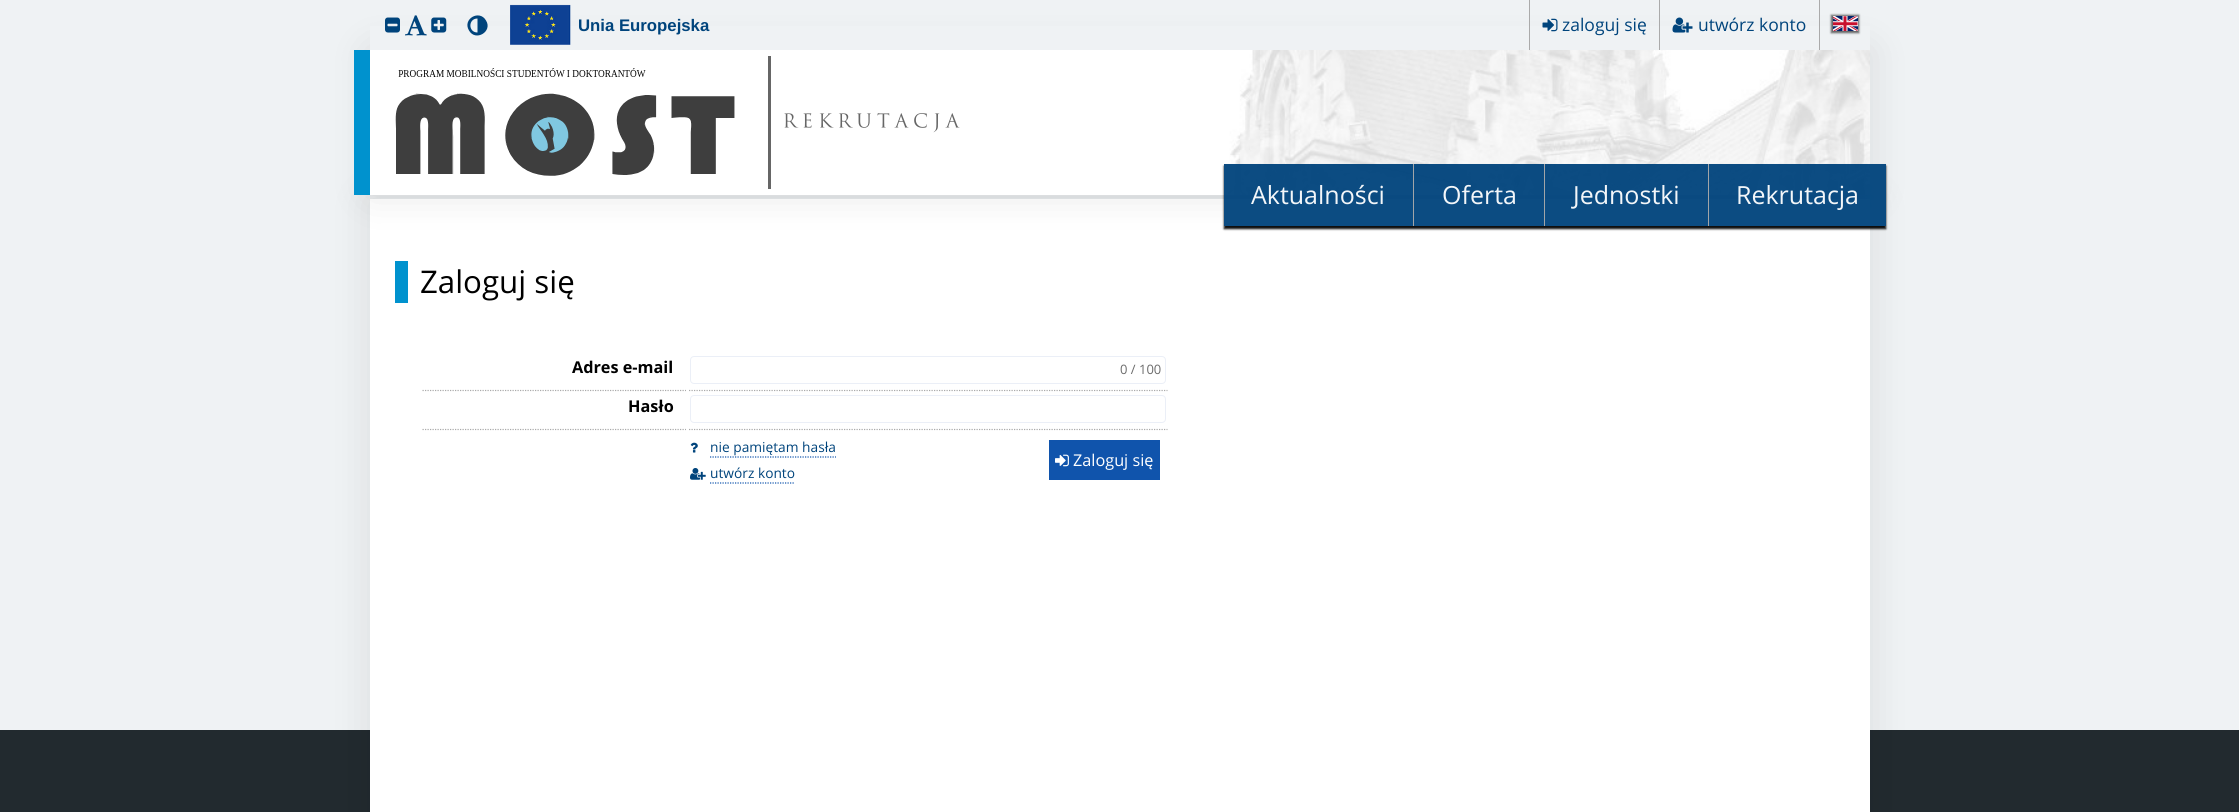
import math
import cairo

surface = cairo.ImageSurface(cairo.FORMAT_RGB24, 2239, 812)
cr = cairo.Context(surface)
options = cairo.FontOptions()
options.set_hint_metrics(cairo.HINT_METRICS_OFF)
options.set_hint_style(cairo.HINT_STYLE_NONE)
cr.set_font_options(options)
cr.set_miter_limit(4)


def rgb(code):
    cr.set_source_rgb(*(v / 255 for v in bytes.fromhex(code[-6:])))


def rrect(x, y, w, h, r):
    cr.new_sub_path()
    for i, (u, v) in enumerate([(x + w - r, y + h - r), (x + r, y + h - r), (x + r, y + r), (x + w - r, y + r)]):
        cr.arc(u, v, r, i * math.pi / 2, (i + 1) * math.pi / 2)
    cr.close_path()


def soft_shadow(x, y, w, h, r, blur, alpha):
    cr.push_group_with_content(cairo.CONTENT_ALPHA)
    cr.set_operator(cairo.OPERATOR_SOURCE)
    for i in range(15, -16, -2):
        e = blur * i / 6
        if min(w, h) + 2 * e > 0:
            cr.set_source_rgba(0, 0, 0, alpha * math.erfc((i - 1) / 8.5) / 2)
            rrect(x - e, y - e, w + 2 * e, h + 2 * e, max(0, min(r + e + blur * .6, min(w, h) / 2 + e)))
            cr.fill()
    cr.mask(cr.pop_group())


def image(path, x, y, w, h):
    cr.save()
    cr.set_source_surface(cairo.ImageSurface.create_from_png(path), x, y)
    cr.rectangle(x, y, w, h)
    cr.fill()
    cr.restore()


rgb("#eff2f4")
cr.paint()
rgb("#222a2f")
cr.rectangle(0, 730, 2239, 82)
cr.fill()
rgb("#000000")
soft_shadow(370, 199, 1500, 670, 0, 19, 0.1)
rgb("#ffffff")
cr.rectangle(370, 199, 1500, 613)
cr.fill()
rgb("#000000")
soft_shadow(370, 50, 1500, 145, 0, 19, 0.1)
rgb("#ffffff")
cr.rectangle(370, 50, 856, 145)
cr.fill()
image("img/1.png", 1226, 50, 644, 145)
rgb("#0092ce")
cr.rectangle(354, 50, 16, 145)
cr.fill()
rgb("#666666")
cr.rectangle(768, 56, 3, 133)
cr.fill()
image("img/2.png", 395, 68, 340, 108)
image("img/3.png", 784, 113, 176, 20)
rgb("#eff2f4")
cr.rectangle(370, 26, 1500, 24)
cr.fill()
image("img/4.png", 385, 17, 15, 16)
image("img/5.png", 405, 15, 22, 21)
image("img/6.png", 431, 17, 16, 16)
rgb("#00447c")
cr.new_path()
cr.move_to(477.5, 32.5)
cr.line_to(477.5, 18.5)
cr.curve_to(468, 18.5, 468, 32.5, 477.5, 32.5)
cr.close_path()
cr.move_to(486, 20.5)
cr.curve_to(493, 31.5, 475.5, 42, 469, 30.5)
cr.curve_to(462, 19, 479.5, 9, 486, 20.5)
cr.close_path()
cr.fill()
image("img/7.png", 510, 4, 61, 41)
rgb("#aaaaaa")
cr.rectangle(1659, 0, 1, 50)
cr.fill()
cr.rectangle(1529, 0, 1, 50)
cr.fill()
image("img/8.png", 1542, 18, 16, 14)
cr.rectangle(1819, 0, 1, 50)
cr.fill()
image("img/9.png", 1672, 17, 21, 16)
rgb("#000000")
soft_shadow(1831, 15, 28, 18, 0, 1, 0.6)
image("img/10.png", 1833, 16, 25, 15)
cr.save()
cr.set_fill_rule(cairo.FILL_RULE_EVEN_ODD)
cr.new_path()
cr.move_to(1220, 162)
cr.line_to(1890, 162)
cr.line_to(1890, 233)
cr.line_to(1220, 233)
cr.close_path()
cr.move_to(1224, 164)
cr.line_to(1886, 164)
cr.line_to(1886, 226)
cr.line_to(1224, 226)
cr.close_path()
cr.clip()
soft_shadow(1224, 166, 662, 63, 0, 1, 0.95)
cr.restore()
cr.set_source_rgba(0, 0.267, 0.486, 0.95)
cr.rectangle(1224, 164, 662, 62)
cr.fill()
rgb("#a2a5a8")
cr.rectangle(1413, 164, 1, 62)
cr.rectangle(1544, 164, 1, 62)
cr.rectangle(1708, 164, 1, 62)
cr.fill()
rgb("#0092ce")
cr.rectangle(395, 261, 13, 42)
cr.fill()
rrect(690.5, 356.5, 475, 27, 3.5)
rgb("#ebeff7")
cr.set_line_width(1)
cr.stroke()
cr.new_path()
cr.move_to(422.5, 390.5)
cr.line_to(686, 390.5)
rgb("#aaaaaa")
cr.set_line_width(1.2)
cr.set_dash([1.25, 1.25])
cr.stroke()
cr.new_path()
cr.move_to(689, 390.5)
cr.line_to(1167.5, 390.5)
cr.stroke()
rrect(690.5, 395.5, 475, 27, 3.5)
rgb("#ebeff7")
cr.set_line_width(1)
cr.set_dash([])
cr.stroke()
cr.new_path()
cr.move_to(422.5, 429.5)
cr.line_to(686, 429.5)
rgb("#aaaaaa")
cr.set_line_width(1.2)
cr.set_dash([1.25, 1.25])
cr.stroke()
cr.new_path()
cr.move_to(689, 429.5)
cr.line_to(1167.5, 429.5)
cr.stroke()
image("img/11.png", 690, 442, 8, 11)
cr.new_path()
cr.move_to(710, 457)
cr.line_to(836, 457)
rgb("#1054ac")
cr.stroke()
image("img/12.png", 690, 468, 16, 12)
cr.new_path()
cr.move_to(710, 483)
cr.line_to(795, 483)
cr.stroke()
cr.rectangle(1049, 440, 111, 40)
cr.fill()
image("img/13.png", 1055, 454, 14, 13)
cr.select_font_face("Liberation Sans", cairo.FONT_SLANT_NORMAL, cairo.FONT_WEIGHT_BOLD)
cr.set_font_size(16.75)
rgb("#00447c")
cr.move_to(578, 31)
cr.show_text("Unia Europejska")
cr.select_font_face("Open Sans")
cr.set_font_size(17.5)
cr.move_to(1562, 31)
cr.show_text("zaloguj się")
cr.move_to(1698, 31)
cr.show_text("utwórz konto")
cr.set_font_size(25)
rgb("#f3f6f9")
for x, y, s in [
    (1251, 204, "Aktualności"),
    (1442, 204, "Oferta"),
    (1573, 204, "Jednostki"),
    (1736, 204, "Rekrutacja"),
]:
    cr.move_to(x, y)
    cr.show_text(s)
cr.set_font_size(31.25)
rgb("#000000")
cr.move_to(420, 293)
cr.show_text("Zaloguj się")
cr.select_font_face("Open Sans", cairo.FONT_SLANT_NORMAL, cairo.FONT_WEIGHT_BOLD)
cr.set_font_size(16.25)
cr.move_to(572, 373)
cr.show_text("Adres e-mail")
cr.select_font_face("Open Sans")
cr.set_font_size(13)
rgb("#6c6c6c")
cr.move_to(1120, 374)
cr.show_text("0 / 100")
cr.select_font_face("Open Sans", cairo.FONT_SLANT_NORMAL, cairo.FONT_WEIGHT_BOLD)
cr.set_font_size(16.25)
rgb("#000000")
cr.move_to(628, 412)
cr.show_text("Hasło")
cr.select_font_face("Open Sans")
cr.set_font_size(13.75)
rgb("#00447c")
cr.move_to(710, 452)
cr.show_text("nie pamiętam hasła")
cr.move_to(710, 478)
cr.show_text("utwórz konto")
cr.set_font_size(16.25)
rgb("#ffffff")
cr.move_to(1073, 466)
cr.show_text("Zaloguj się")
surface.write_to_png("page.png")
